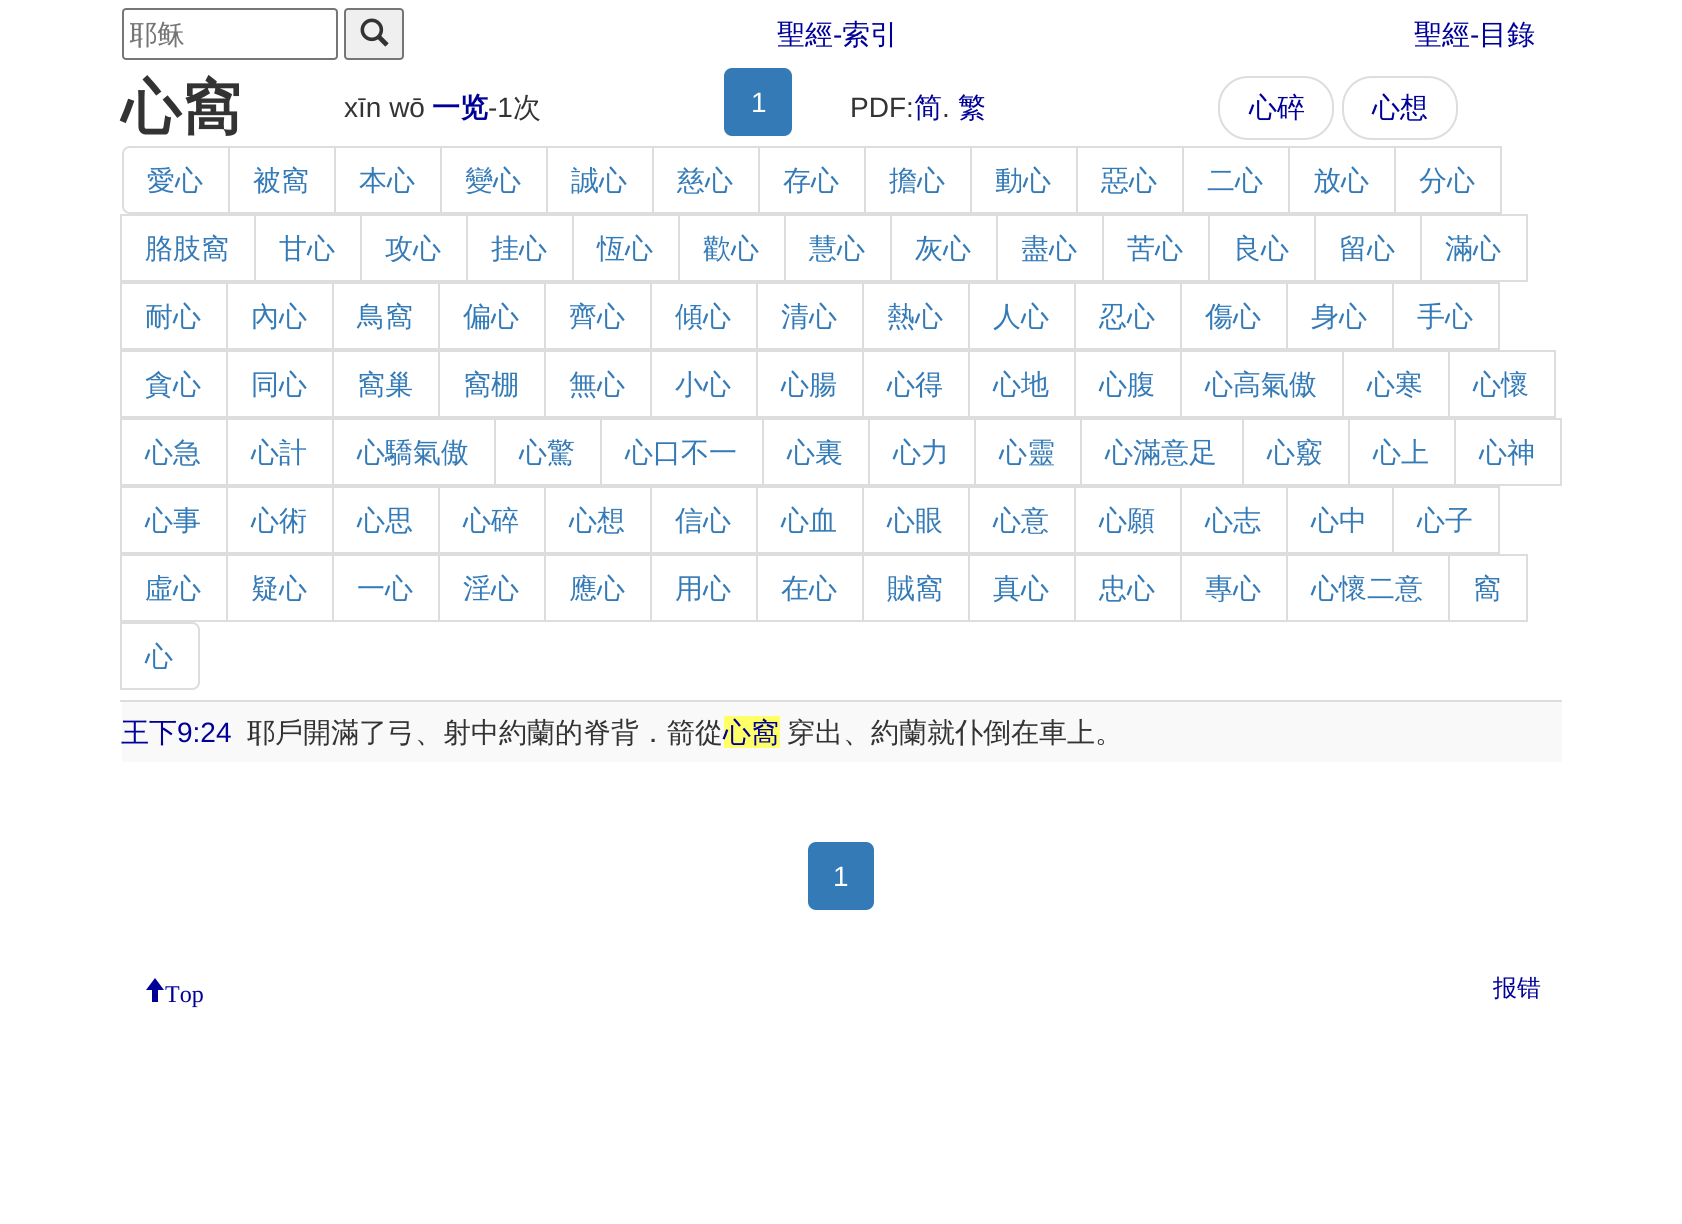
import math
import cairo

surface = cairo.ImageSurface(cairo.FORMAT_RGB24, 1682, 1224)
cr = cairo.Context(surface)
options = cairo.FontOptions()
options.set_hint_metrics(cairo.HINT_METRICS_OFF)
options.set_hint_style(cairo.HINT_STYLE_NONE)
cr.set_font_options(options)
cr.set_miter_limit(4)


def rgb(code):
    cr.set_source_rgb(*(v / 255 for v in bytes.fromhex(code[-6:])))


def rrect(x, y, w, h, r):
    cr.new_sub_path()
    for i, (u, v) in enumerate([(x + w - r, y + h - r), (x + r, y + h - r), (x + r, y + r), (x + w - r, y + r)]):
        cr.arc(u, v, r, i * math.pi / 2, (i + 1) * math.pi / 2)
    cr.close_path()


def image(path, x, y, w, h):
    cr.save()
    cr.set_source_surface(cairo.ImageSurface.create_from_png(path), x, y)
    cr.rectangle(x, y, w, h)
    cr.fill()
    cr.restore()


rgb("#ffffff")
cr.paint()
rrect(123, 9, 214, 50, 3)
rgb("#767676")
cr.stroke()
rgb("#efefef")
rrect(345, 9, 58, 50, 3)
cr.fill_preserve()
rgb("#767676")
cr.stroke()
image("img/1.png", 360, 18, 29, 29)
rgb("#337ab7")
rrect(725, 69, 66, 66, 7)
cr.fill_preserve()
cr.stroke()
rrect(1219, 77, 114, 62, 29)
rgb("#dddddd")
cr.stroke()
rrect(1343, 77, 114, 62, 29)
cr.stroke()
cr.new_path()
cr.move_to(130, 147)
cr.line_to(229, 147)
cr.line_to(229, 213)
cr.line_to(130, 213)
cr.curve_to(126, 213, 123, 210, 123, 206)
cr.line_to(123, 154)
cr.curve_to(123, 150, 126, 147, 130, 147)
cr.close_path()
cr.stroke()
cr.rectangle(229, 147, 106, 66)
cr.stroke()
cr.rectangle(335, 147, 106, 66)
cr.stroke()
cr.rectangle(441, 147, 106, 66)
cr.stroke()
cr.rectangle(547, 147, 106, 66)
cr.stroke()
cr.rectangle(653, 147, 106, 66)
cr.stroke()
cr.rectangle(759, 147, 106, 66)
cr.stroke()
cr.rectangle(865, 147, 106, 66)
cr.stroke()
cr.rectangle(971, 147, 106, 66)
cr.stroke()
cr.rectangle(1077, 147, 106, 66)
cr.stroke()
cr.rectangle(1183, 147, 106, 66)
cr.stroke()
cr.rectangle(1289, 147, 106, 66)
cr.stroke()
cr.rectangle(1395, 147, 106, 66)
cr.stroke()
cr.rectangle(121, 215, 134, 66)
cr.stroke()
cr.rectangle(255, 215, 106, 66)
cr.stroke()
cr.rectangle(361, 215, 106, 66)
cr.stroke()
cr.rectangle(467, 215, 106, 66)
cr.stroke()
cr.rectangle(573, 215, 106, 66)
cr.stroke()
cr.rectangle(679, 215, 106, 66)
cr.stroke()
cr.rectangle(785, 215, 106, 66)
cr.stroke()
cr.rectangle(891, 215, 106, 66)
cr.stroke()
cr.rectangle(997, 215, 106, 66)
cr.stroke()
cr.rectangle(1103, 215, 106, 66)
cr.stroke()
cr.rectangle(1209, 215, 106, 66)
cr.stroke()
cr.rectangle(1315, 215, 106, 66)
cr.stroke()
cr.rectangle(1421, 215, 106, 66)
cr.stroke()
cr.rectangle(121, 283, 106, 66)
cr.stroke()
cr.rectangle(227, 283, 106, 66)
cr.stroke()
cr.rectangle(333, 283, 106, 66)
cr.stroke()
cr.rectangle(439, 283, 106, 66)
cr.stroke()
cr.rectangle(545, 283, 106, 66)
cr.stroke()
cr.rectangle(651, 283, 106, 66)
cr.stroke()
cr.rectangle(757, 283, 106, 66)
cr.stroke()
cr.rectangle(863, 283, 106, 66)
cr.stroke()
cr.rectangle(969, 283, 106, 66)
cr.stroke()
cr.rectangle(1075, 283, 106, 66)
cr.stroke()
cr.rectangle(1181, 283, 106, 66)
cr.stroke()
cr.rectangle(1287, 283, 106, 66)
cr.stroke()
cr.rectangle(1393, 283, 106, 66)
cr.stroke()
cr.rectangle(121, 351, 106, 66)
cr.stroke()
cr.rectangle(227, 351, 106, 66)
cr.stroke()
cr.rectangle(333, 351, 106, 66)
cr.stroke()
cr.rectangle(439, 351, 106, 66)
cr.stroke()
cr.rectangle(545, 351, 106, 66)
cr.stroke()
cr.rectangle(651, 351, 106, 66)
cr.stroke()
cr.rectangle(757, 351, 106, 66)
cr.stroke()
cr.rectangle(863, 351, 106, 66)
cr.stroke()
cr.rectangle(969, 351, 106, 66)
cr.stroke()
cr.rectangle(1075, 351, 106, 66)
cr.stroke()
cr.rectangle(1181, 351, 162, 66)
cr.stroke()
cr.rectangle(1343, 351, 106, 66)
cr.stroke()
cr.rectangle(1449, 351, 106, 66)
cr.stroke()
cr.rectangle(121, 419, 106, 66)
cr.stroke()
cr.rectangle(227, 419, 106, 66)
cr.stroke()
cr.rectangle(333, 419, 162, 66)
cr.stroke()
cr.rectangle(495, 419, 106, 66)
cr.stroke()
cr.rectangle(601, 419, 162, 66)
cr.stroke()
cr.rectangle(763, 419, 106, 66)
cr.stroke()
cr.rectangle(869, 419, 106, 66)
cr.stroke()
cr.rectangle(975, 419, 106, 66)
cr.stroke()
cr.rectangle(1081, 419, 162, 66)
cr.stroke()
cr.rectangle(1243, 419, 106, 66)
cr.stroke()
cr.rectangle(1349, 419, 106, 66)
cr.stroke()
cr.rectangle(1455, 419, 106, 66)
cr.stroke()
cr.rectangle(121, 487, 106, 66)
cr.stroke()
cr.rectangle(227, 487, 106, 66)
cr.stroke()
cr.rectangle(333, 487, 106, 66)
cr.stroke()
cr.rectangle(439, 487, 106, 66)
cr.stroke()
cr.rectangle(545, 487, 106, 66)
cr.stroke()
cr.rectangle(651, 487, 106, 66)
cr.stroke()
cr.rectangle(757, 487, 106, 66)
cr.stroke()
cr.rectangle(863, 487, 106, 66)
cr.stroke()
cr.rectangle(969, 487, 106, 66)
cr.stroke()
cr.rectangle(1075, 487, 106, 66)
cr.stroke()
cr.rectangle(1181, 487, 106, 66)
cr.stroke()
cr.rectangle(1287, 487, 106, 66)
cr.stroke()
cr.rectangle(1393, 487, 106, 66)
cr.stroke()
cr.rectangle(121, 555, 106, 66)
cr.stroke()
cr.rectangle(227, 555, 106, 66)
cr.stroke()
cr.rectangle(333, 555, 106, 66)
cr.stroke()
cr.rectangle(439, 555, 106, 66)
cr.stroke()
cr.rectangle(545, 555, 106, 66)
cr.stroke()
cr.rectangle(651, 555, 106, 66)
cr.stroke()
cr.rectangle(757, 555, 106, 66)
cr.stroke()
cr.rectangle(863, 555, 106, 66)
cr.stroke()
cr.rectangle(969, 555, 106, 66)
cr.stroke()
cr.rectangle(1075, 555, 106, 66)
cr.stroke()
cr.rectangle(1181, 555, 106, 66)
cr.stroke()
cr.rectangle(1287, 555, 162, 66)
cr.stroke()
cr.rectangle(1449, 555, 78, 66)
cr.stroke()
cr.new_path()
cr.move_to(121, 623)
cr.line_to(192, 623)
cr.curve_to(196, 623, 199, 626, 199, 630)
cr.line_to(199, 682)
cr.curve_to(199, 686, 196, 689, 192, 689)
cr.line_to(121, 689)
cr.close_path()
cr.stroke()
for x, y, w, h, color in [
    (122, 702, 1440, 60, "#f9f9f9"),
    (120, 700, 1442, 2, "#dddddd"),
    (724, 716, 56, 32, "#ffff66"),
]:
    rgb(color)
    cr.rectangle(x, y, w, h)
    cr.fill()
rgb("#337ab7")
rrect(809, 843, 64, 66, 7)
cr.fill_preserve()
cr.stroke()
rgb("#000099")
cr.new_path()
cr.move_to(146, 990)
cr.line_to(155, 978)
cr.line_to(164, 990)
cr.line_to(158, 990)
cr.line_to(158, 1002)
cr.line_to(152, 1002)
cr.line_to(152, 990)
cr.close_path()
cr.fill()
cr.save()
cr.rectangle(130, 18, 200, 36)
cr.clip()
cr.select_font_face("WenQuanYi Zen Hei Medium")
cr.set_font_size(28)
rgb("#757575")
cr.move_to(129, 44)
cr.show_text("耶稣")
cr.restore()
cr.select_font_face("WenQuanYi Zen Hei Medium")
cr.set_font_size(28)
cr.move_to(777, 44)
cr.show_text("聖經")
cr.select_font_face("Liberation Sans")
cr.move_to(833, 44)
cr.show_text("-")
cr.select_font_face("WenQuanYi Zen Hei Medium")
cr.move_to(842, 44)
cr.show_text("索引")
cr.move_to(1414, 44)
cr.show_text("聖經")
cr.select_font_face("Liberation Sans")
cr.move_to(1470, 44)
cr.show_text("-")
cr.select_font_face("WenQuanYi Zen Hei Medium")
cr.move_to(1479, 44)
cr.show_text("目錄")
cr.select_font_face("WenQuanYi Zen Hei", cairo.FONT_SLANT_NORMAL, cairo.FONT_WEIGHT_BOLD)
cr.set_font_size(60)
rgb("#333333")
cr.move_to(121, 128)
cr.show_text("心窩")
cr.select_font_face("Liberation Sans")
cr.set_font_size(28)
cr.move_to(344, 117)
cr.show_text("xīn wō")
cr.select_font_face("WenQuanYi Zen Hei", cairo.FONT_SLANT_NORMAL, cairo.FONT_WEIGHT_BOLD)
rgb("#000099")
cr.move_to(432, 117)
cr.show_text("一览")
cr.select_font_face("Liberation Sans")
rgb("#333333")
cr.move_to(488, 117)
cr.show_text("-1")
cr.select_font_face("WenQuanYi Zen Hei Medium")
cr.move_to(513, 117)
cr.show_text("次")
cr.select_font_face("Liberation Sans")
rgb("#ffffff")
cr.move_to(751, 112)
cr.show_text("1")
rgb("#333333")
cr.move_to(850, 117)
cr.show_text("PDF:")
cr.select_font_face("WenQuanYi Zen Hei Medium")
rgb("#000099")
cr.move_to(914, 117)
cr.show_text("简")
cr.select_font_face("Liberation Sans")
rgb("#333333")
cr.move_to(942, 117)
cr.show_text(".")
cr.select_font_face("WenQuanYi Zen Hei Medium")
rgb("#000099")
for x, y, s in [
    (958, 117, "繁"),
    (1249, 117, "心碎"),
    (1372, 117, "心想"),
]:
    cr.move_to(x, y)
    cr.show_text(s)
rgb("#337ab7")
for x, y, s in [
    (147, 190, "愛心"),
    (253, 190, "被窩"),
    (359, 190, "本心"),
    (465, 190, "變心"),
    (571, 190, "誠心"),
    (677, 190, "慈心"),
    (783, 190, "存心"),
    (889, 190, "擔心"),
    (995, 190, "動心"),
    (1101, 190, "惡心"),
    (1207, 190, "二心"),
    (1313, 190, "放心"),
    (1419, 190, "分心"),
    (145, 258, "胳肢窩"),
    (279, 258, "甘心"),
    (385, 258, "攻心"),
    (491, 258, "挂心"),
    (597, 258, "恆心"),
    (703, 258, "歡心"),
    (809, 258, "慧心"),
    (915, 258, "灰心"),
    (1021, 258, "盡心"),
    (1127, 258, "苦心"),
    (1233, 258, "良心"),
    (1339, 258, "留心"),
    (1445, 258, "滿心"),
    (145, 326, "耐心"),
    (251, 326, "內心"),
    (357, 326, "鳥窩"),
    (463, 326, "偏心"),
    (569, 326, "齊心"),
    (675, 326, "傾心"),
    (781, 326, "清心"),
    (887, 326, "熱心"),
    (993, 326, "人心"),
    (1099, 326, "忍心"),
    (1205, 326, "傷心"),
    (1311, 326, "身心"),
    (1417, 326, "手心"),
    (145, 394, "貪心"),
    (251, 394, "同心"),
    (357, 394, "窩巢"),
    (463, 394, "窩棚"),
    (569, 394, "無心"),
    (675, 394, "小心"),
    (781, 394, "心腸"),
    (887, 394, "心得"),
    (993, 394, "心地"),
    (1099, 394, "心腹"),
    (1205, 394, "心高氣傲"),
    (1367, 394, "心寒"),
    (1473, 394, "心懷"),
    (145, 462, "心急"),
    (251, 462, "心計"),
    (357, 462, "心驕氣傲"),
    (519, 462, "心驚"),
    (625, 462, "心口不一"),
    (787, 462, "心裏"),
    (893, 462, "心力"),
    (999, 462, "心靈"),
    (1105, 462, "心滿意足"),
    (1267, 462, "心竅"),
    (1373, 462, "心上"),
    (1479, 462, "心神"),
    (145, 530, "心事"),
    (251, 530, "心術"),
    (357, 530, "心思"),
    (463, 530, "心碎"),
    (569, 530, "心想"),
    (675, 530, "信心"),
    (781, 530, "心血"),
    (887, 530, "心眼"),
    (993, 530, "心意"),
    (1099, 530, "心願"),
    (1205, 530, "心志"),
    (1311, 530, "心中"),
    (1417, 530, "心子"),
    (145, 598, "虛心"),
    (251, 598, "疑心"),
    (357, 598, "一心"),
    (463, 598, "淫心"),
    (569, 598, "應心"),
    (675, 598, "用心"),
    (781, 598, "在心"),
    (887, 598, "賊窩"),
    (993, 598, "真心"),
    (1099, 598, "忠心"),
    (1205, 598, "專心"),
    (1311, 598, "心懷二意"),
    (1473, 598, "窩"),
    (145, 666, "心"),
]:
    cr.move_to(x, y)
    cr.show_text(s)
rgb("#000099")
cr.move_to(121, 742)
cr.show_text("王下")
cr.select_font_face("Liberation Sans")
cr.move_to(177, 742)
cr.show_text("9:24")
cr.select_font_face("WenQuanYi Zen Hei Medium")
rgb("#333333")
cr.move_to(247, 742)
cr.show_text("耶戶開滿了弓、射中約蘭的脊背．箭從")
rgb("#000099")
cr.move_to(723, 742)
cr.show_text("心窩")
rgb("#333333")
cr.move_to(787, 742)
cr.show_text("穿出、約蘭就仆倒在車上。")
cr.select_font_face("Liberation Sans")
rgb("#ffffff")
cr.move_to(833, 886)
cr.show_text("1")
cr.select_font_face("Liberation Serif")
cr.set_font_size(24)
rgb("#000099")
cr.move_to(165, 1002)
cr.show_text("Top")
cr.select_font_face("WenQuanYi Zen Hei Medium")
cr.move_to(1493, 996)
cr.show_text("报错")
surface.write_to_png("page.png")
